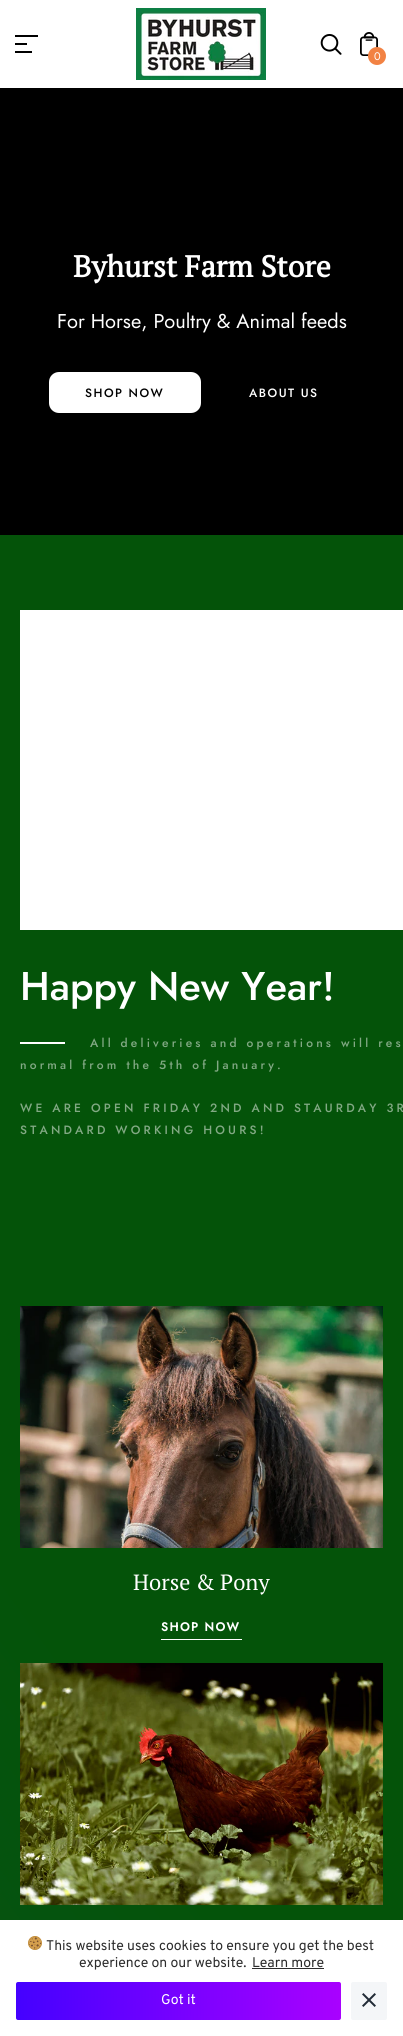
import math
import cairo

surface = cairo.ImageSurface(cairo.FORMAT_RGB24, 403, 2036)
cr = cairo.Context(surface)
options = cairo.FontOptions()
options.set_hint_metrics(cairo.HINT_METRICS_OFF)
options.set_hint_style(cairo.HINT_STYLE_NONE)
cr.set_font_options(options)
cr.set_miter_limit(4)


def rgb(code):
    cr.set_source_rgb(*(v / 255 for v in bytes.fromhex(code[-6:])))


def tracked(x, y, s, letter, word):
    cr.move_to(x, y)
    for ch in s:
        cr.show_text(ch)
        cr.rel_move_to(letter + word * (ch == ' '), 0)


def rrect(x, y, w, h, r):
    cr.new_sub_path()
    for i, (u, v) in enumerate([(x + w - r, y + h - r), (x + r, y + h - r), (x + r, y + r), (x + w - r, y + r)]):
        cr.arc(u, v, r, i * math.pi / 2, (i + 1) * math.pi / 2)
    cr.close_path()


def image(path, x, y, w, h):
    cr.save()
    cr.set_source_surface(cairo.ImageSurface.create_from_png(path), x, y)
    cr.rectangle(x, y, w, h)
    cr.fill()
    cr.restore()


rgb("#000000")
cr.paint()
for x, y, w, h, color in [
    (0, 0, 403, 88, "#ffffff"),
    (15, 43, 12, 2, "#000000"),
    (15, 35, 23, 2, "#000000"),
    (15, 51, 17, 2, "#000000"),
]:
    rgb(color)
    cr.rectangle(x, y, w, h)
    cr.fill()
image("img/1.png", 136, 8, 130, 72)
image("img/2.png", 320, 34, 22, 21)
image("img/3.png", 360, 32, 18, 24)
rgb("#f28243")
cr.arc(377, 56, 9, 0, 2 * math.pi)
cr.fill()
rgb("#ffffff")
rrect(48, 371, 154, 43, 11)
cr.fill_preserve()
rgb("#000000")
cr.stroke()
for x, y, w, h, color in [
    (0, 535, 403, 734, "#045309"),
    (20, 610, 383, 320, "#ffffff"),
    (20, 1042, 45, 2, "#ffffff"),
]:
    rgb(color)
    cr.rectangle(x, y, w, h)
    cr.fill()
gradient = cairo.LinearGradient(-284, 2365, 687, 1659)
gradient.add_color_stop_rgba(0, 0.016, 0.325, 0.035, 1)
gradient.add_color_stop_rgba(0.14, 0.031, 0.325, 0.098, 1)
gradient.add_color_stop_rgba(0.59, 0.016, 0.325, 0.035, 1)
cr.set_source(gradient)
cr.rectangle(0, 1269, 403, 651)
cr.fill()
image("img/4.png", 20, 1306, 363, 242)
rgb("#ffffff")
cr.rectangle(161, 1639, 81, 1)
cr.fill()
image("img/5.png", 20, 1663, 363, 242)
cr.rectangle(0, 1920, 403, 116)
cr.fill()
image("img/6.png", 28, 1936, 14, 14)
rgb("#2d2d2d")
cr.rectangle(252, 1968, 72, 1)
cr.fill()
gradient = cairo.LinearGradient(16, 2001, 341, 2001)
gradient.add_color_stop_rgba(0, 0.267, 0.004, 1, 1)
gradient.add_color_stop_rgba(1, 0.663, 0.004, 1, 1)
cr.set_source(gradient)
rrect(16, 1982, 325, 38, 2)
cr.fill()
rgb("#f4f6f8")
rrect(351, 1982, 36, 38, 2)
cr.fill()
image("img/7.png", 362, 1993, 14, 14)
cr.select_font_face("Jost")
cr.set_font_size(11)
rgb("#ffffff")
cr.move_to(374, 60)
cr.show_text("0")
cr.select_font_face("PT Serif", cairo.FONT_SLANT_NORMAL, cairo.FONT_WEIGHT_BOLD)
cr.set_font_size(30)
cr.move_to(73, 277)
cr.show_text("Byhurst Farm Store")
cr.select_font_face("Jost")
cr.set_font_size(20)
cr.move_to(57, 328)
cr.show_text("For Horse, Poultry & Animal feeds")
cr.select_font_face("Jost Medium")
cr.set_font_size(12)
rgb("#000000")
tracked(85, 397, "SHOP NOW", 1.5, 0)
rgb("#ffffff")
tracked(249, 397, "ABOUT US", 1.5, 0)
cr.set_font_size(40)
cr.move_to(20, 1000)
cr.show_text("Happy New Year!")
cr.set_font_size(12)
rgb("#82a984")
for x, y, s in [
    (90, 1047, "All deliveries and operations will res"),
    (20, 1069, "normal from the 5th of January."),
    (20, 1112, "WE ARE OPEN FRIDAY 2ND AND STAURDAY 3R"),
    (20, 1134, "STANDARD WORKING HOURS!"),
]:
    tracked(x, y, s, 3.2, 0)
cr.select_font_face("PT Serif")
cr.set_font_size(22)
rgb("#ffffff")
cr.move_to(133, 1590)
cr.show_text("Horse & Pony")
cr.select_font_face("Jost", cairo.FONT_SLANT_NORMAL, cairo.FONT_WEIGHT_BOLD)
cr.set_font_size(12)
tracked(161, 1631, "SHOP NOW", 1.5, 0)
cr.select_font_face("Overpass")
cr.set_font_size(14)
rgb("#2d2d2d")
for x, y, s in [
    (46, 1950, "This website uses cookies to ensure you get the best"),
    (79, 1967, "experience on our website."),
    (252, 1967, "Learn more"),
]:
    cr.move_to(x, y)
    cr.show_text(s)
rgb("#ffffff")
cr.move_to(161, 2004)
cr.show_text("Got it")
surface.write_to_png("page.png")
